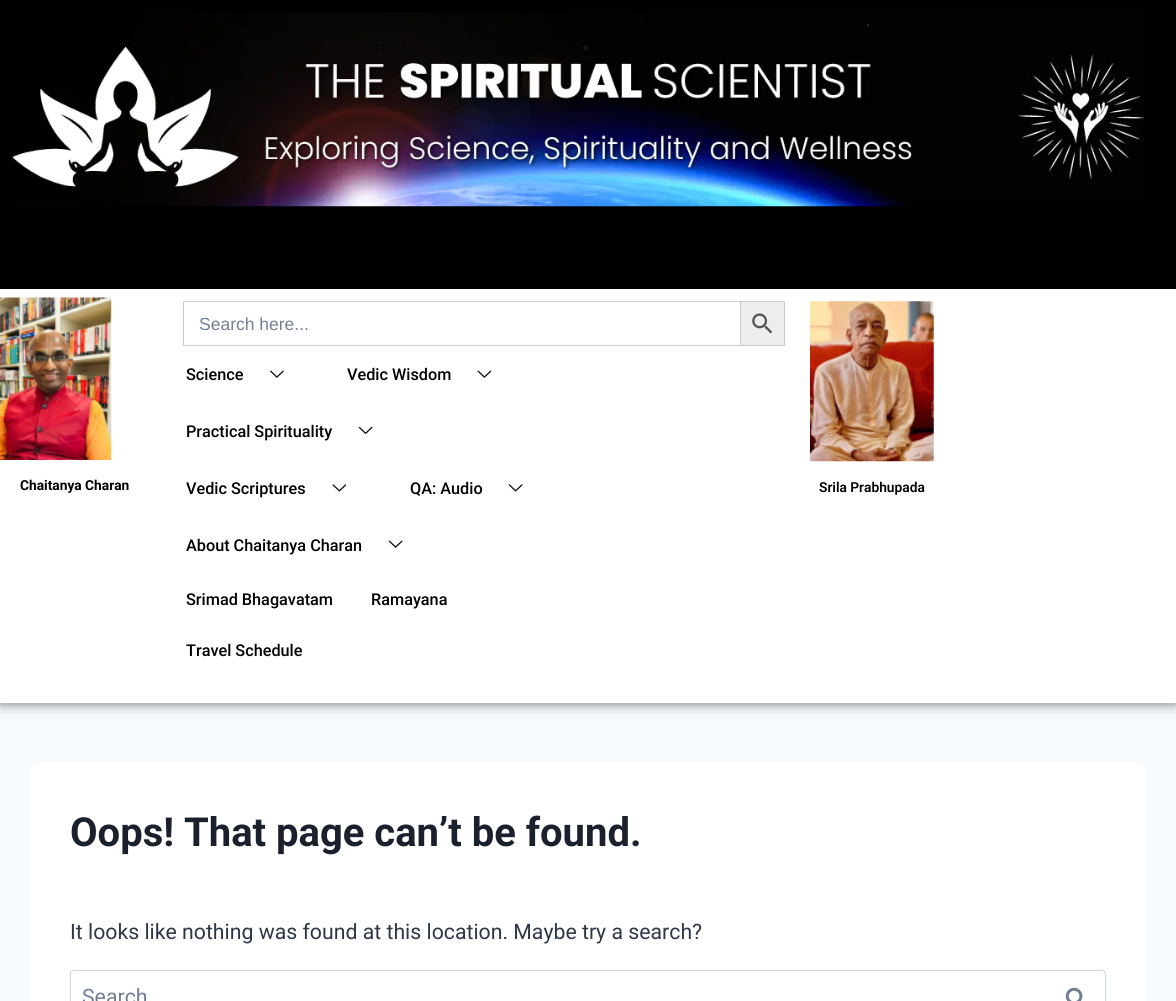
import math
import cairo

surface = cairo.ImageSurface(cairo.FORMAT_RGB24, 1176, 1001)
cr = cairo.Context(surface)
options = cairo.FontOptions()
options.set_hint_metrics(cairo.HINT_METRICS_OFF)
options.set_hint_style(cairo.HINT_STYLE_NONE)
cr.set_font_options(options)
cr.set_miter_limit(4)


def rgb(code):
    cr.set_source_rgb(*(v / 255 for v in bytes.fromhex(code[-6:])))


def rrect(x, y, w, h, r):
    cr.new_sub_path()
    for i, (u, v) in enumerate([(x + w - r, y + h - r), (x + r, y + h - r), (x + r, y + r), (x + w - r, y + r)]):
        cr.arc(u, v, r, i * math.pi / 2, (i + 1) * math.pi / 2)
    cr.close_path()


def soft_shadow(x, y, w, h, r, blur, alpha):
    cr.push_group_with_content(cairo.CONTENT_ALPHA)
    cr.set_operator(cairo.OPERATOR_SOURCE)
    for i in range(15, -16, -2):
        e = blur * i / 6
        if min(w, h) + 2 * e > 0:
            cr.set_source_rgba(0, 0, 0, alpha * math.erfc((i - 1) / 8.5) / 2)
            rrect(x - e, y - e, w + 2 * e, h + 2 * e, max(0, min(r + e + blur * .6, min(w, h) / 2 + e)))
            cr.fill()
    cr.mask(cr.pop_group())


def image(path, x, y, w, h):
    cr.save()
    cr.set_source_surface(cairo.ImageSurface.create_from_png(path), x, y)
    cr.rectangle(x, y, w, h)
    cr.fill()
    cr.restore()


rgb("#f7fafc")
cr.paint()
rgb("#000000")
cr.rectangle(0, 0, 1176, 289)
cr.fill()
image("img/1.png", 12, 12, 1133, 195)
rgb("#000000")
soft_shadow(0, 290, 1176, 414, 0, 6, 0.5)
rgb("#ffffff")
cr.rectangle(0, 289, 1176, 414)
cr.fill()
image("img/2.png", 0, 297, 112, 163)
for x, y, w, h, color in [
    (183, 301, 557, 1, "#cccccc"),
    (183, 345, 557, 1, "#cccccc"),
    (183, 301, 1, 45, "#cccccc"),
]:
    rgb(color)
    cr.rectangle(x, y, w, h)
    cr.fill()
rgb("#ededed")
cr.rectangle(740.5, 301.5, 44, 44)
cr.fill_preserve()
rgb("#cccccc")
cr.set_line_width(1)
cr.stroke()
image("img/3.png", 752, 313, 21, 21)
image("img/4.png", 270, 370, 14, 8)
image("img/5.png", 477, 370, 15, 8)
image("img/6.png", 358, 426, 15, 8)
image("img/7.png", 332, 484, 15, 8)
image("img/8.png", 508, 484, 15, 8)
image("img/9.png", 388, 540, 15, 8)
image("img/10.png", 810, 301, 124, 161)
rgb("#ffffff")
rrect(30, 763, 1116, 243, 5)
cr.fill()
rrect(70.5, 970.5, 1035, 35, 3.5)
rgb("#cbd5e0")
cr.stroke()
image("img/11.png", 1065, 987, 18, 14)
cr.select_font_face("Roboto", cairo.FONT_SLANT_NORMAL, cairo.FONT_WEIGHT_BOLD)
cr.set_font_size(13.75)
rgb("#000000")
cr.move_to(20, 490)
cr.show_text("Chaitanya Charan")
cr.select_font_face("Liberation Sans")
cr.set_font_size(17.5)
rgb("#718096")
cr.move_to(199, 330)
cr.show_text("Search here...")
cr.select_font_face("Roboto Medium")
cr.set_font_size(16.25)
rgb("#000000")
for x, y, s in [
    (186, 380, "Science"),
    (347, 380, "Vedic Wisdom"),
    (186, 437, "Practical Spirituality"),
    (186, 494, "Vedic Scriptures"),
    (410, 494, "QA: Audio"),
    (186, 551, "About Chaitanya Charan"),
    (186, 605, "Srimad Bhagavatam"),
    (371, 605, "Ramayana"),
    (186, 656, "Travel Schedule"),
]:
    cr.move_to(x, y)
    cr.show_text(s)
cr.select_font_face("Roboto SemiBold")
cr.set_font_size(13.75)
cr.move_to(819, 492)
cr.show_text("Srila Prabhupada")
cr.select_font_face("Roboto", cairo.FONT_SLANT_NORMAL, cairo.FONT_WEIGHT_BOLD)
cr.set_font_size(40)
rgb("#1a202c")
cr.move_to(70, 846)
cr.show_text("Oops! That page can’t be found.")
cr.select_font_face("Roboto")
cr.set_font_size(21.25)
rgb("#2d3748")
cr.move_to(70, 939)
cr.show_text("It looks like nothing was found at this location. Maybe try a search?")
rgb("#718096")
cr.move_to(82, 1004)
cr.show_text("Search")
surface.write_to_png("page.png")
